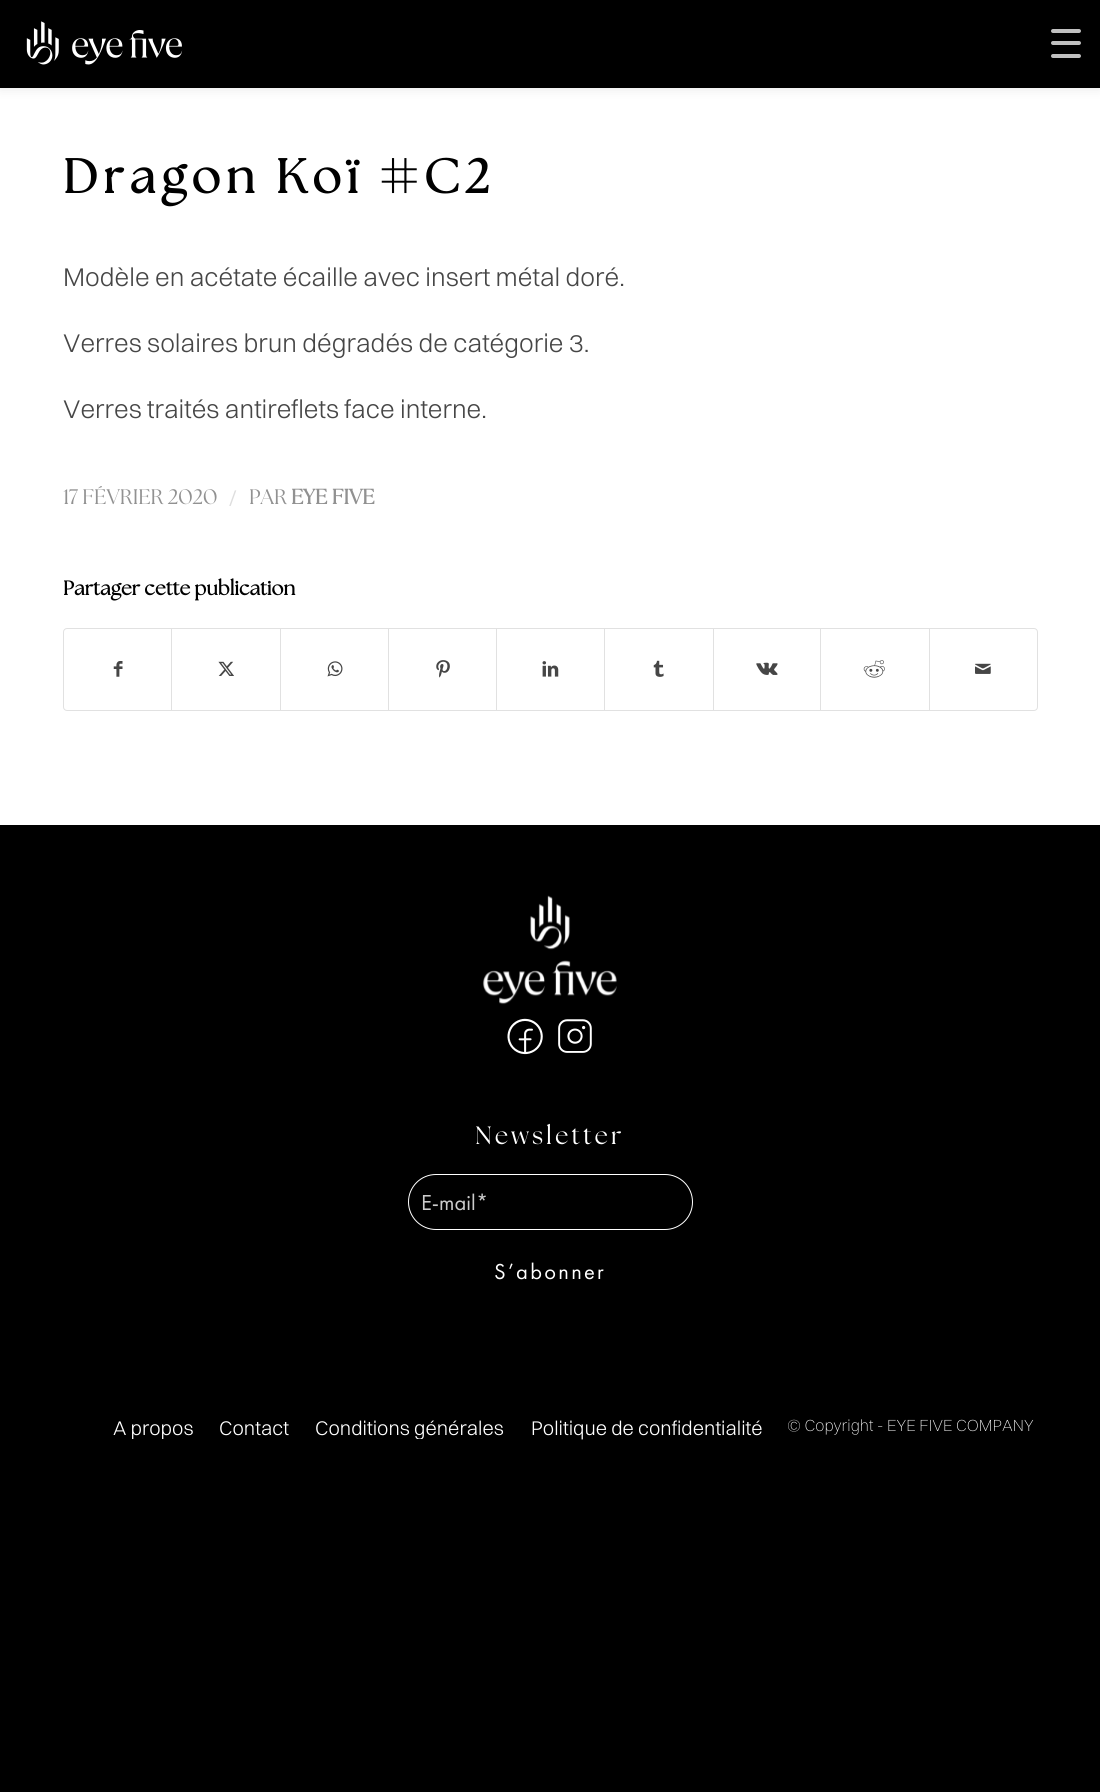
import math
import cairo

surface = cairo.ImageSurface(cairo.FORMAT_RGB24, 1100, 1792)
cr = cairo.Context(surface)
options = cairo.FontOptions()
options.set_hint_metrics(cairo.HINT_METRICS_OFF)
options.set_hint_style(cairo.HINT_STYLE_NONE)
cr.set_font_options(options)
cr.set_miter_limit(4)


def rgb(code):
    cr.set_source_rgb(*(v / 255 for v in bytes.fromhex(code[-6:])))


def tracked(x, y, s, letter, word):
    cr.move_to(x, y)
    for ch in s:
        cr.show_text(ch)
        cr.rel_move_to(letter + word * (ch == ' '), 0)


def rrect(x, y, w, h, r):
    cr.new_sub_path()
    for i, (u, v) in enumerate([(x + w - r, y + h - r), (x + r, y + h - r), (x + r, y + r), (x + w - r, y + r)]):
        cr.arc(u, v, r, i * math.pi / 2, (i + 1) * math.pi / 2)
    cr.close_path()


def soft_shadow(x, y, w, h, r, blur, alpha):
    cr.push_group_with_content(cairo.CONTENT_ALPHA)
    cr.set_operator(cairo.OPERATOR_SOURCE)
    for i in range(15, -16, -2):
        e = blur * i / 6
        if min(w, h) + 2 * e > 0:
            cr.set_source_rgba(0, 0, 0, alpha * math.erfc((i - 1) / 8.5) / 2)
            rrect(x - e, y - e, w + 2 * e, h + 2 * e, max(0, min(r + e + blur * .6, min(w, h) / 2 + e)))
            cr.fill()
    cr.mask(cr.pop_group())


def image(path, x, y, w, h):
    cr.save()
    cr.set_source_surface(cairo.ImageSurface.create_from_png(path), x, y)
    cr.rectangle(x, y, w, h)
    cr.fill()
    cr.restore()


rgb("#000000")
cr.paint()
rgb("#ffffff")
cr.rectangle(0, 88, 1100, 737)
cr.fill()
cr.save()
cr.set_fill_rule(cairo.FILL_RULE_EVEN_ODD)
cr.new_path()
cr.move_to(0, 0)
cr.line_to(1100, 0)
cr.line_to(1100, 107)
cr.line_to(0, 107)
cr.close_path()
cr.move_to(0, 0)
cr.line_to(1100, 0)
cr.line_to(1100, 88)
cr.line_to(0, 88)
cr.close_path()
cr.clip()
rgb("#000000")
soft_shadow(0, 0, 1100, 88, 0, 6, 0.1)
cr.restore()
image("img/1.png", 26, 21, 157, 44)
rgb("#c0c0c0")
rrect(1051, 41, 30, 4, 2)
cr.fill()
rrect(1051, 29, 30, 4, 2)
cr.fill()
rrect(1051, 54, 30, 4, 2)
cr.fill()
rrect(63.5, 628.5, 974, 82, 3.5)
rgb("#e1e1e1")
cr.set_line_width(1)
cr.stroke()
image("img/2.png", 113, 661, 10, 16)
cr.rectangle(171, 629, 1, 81)
cr.fill()
image("img/3.png", 218, 661, 16, 15)
cr.rectangle(280, 629, 1, 81)
cr.fill()
image("img/4.png", 327, 661, 16, 16)
cr.rectangle(388, 629, 1, 81)
cr.fill()
image("img/5.png", 436, 660, 14, 18)
cr.rectangle(496, 629, 1, 81)
cr.fill()
image("img/6.png", 542, 661, 17, 16)
cr.rectangle(604, 629, 1, 81)
cr.fill()
image("img/7.png", 653, 660, 11, 17)
cr.rectangle(713, 629, 1, 81)
cr.fill()
image("img/8.png", 756, 662, 22, 13)
cr.rectangle(820, 629, 1, 81)
cr.fill()
image("img/9.png", 863, 660, 22, 18)
cr.rectangle(929, 629, 1, 81)
cr.fill()
image("img/10.png", 975, 663, 16, 11)
image("img/11.png", 482, 895, 135, 110)
image("img/12.png", 507, 1018, 36, 37)
image("img/13.png", 558, 1019, 34, 34)
rrect(408.5, 1174.5, 284, 55, 27.5)
rgb("#ffffff")
cr.stroke()
cr.select_font_face("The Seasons", cairo.FONT_SLANT_NORMAL, cairo.FONT_WEIGHT_BOLD)
cr.set_font_size(48)
rgb("#000000")
tracked(63, 193, "Dragon Koï #C2", 5.75, 0)
cr.select_font_face("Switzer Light")
cr.set_font_size(25.9)
rgb("#464646")
for x, y, s in [
    (63, 286, "Modèle en acétate écaille avec insert métal doré."),
    (63, 352, "Verres solaires brun dégradés de catégorie 3."),
    (63, 418, "Verres traités antireflets face interne."),
]:
    cr.move_to(x, y)
    cr.show_text(s)
cr.select_font_face("The Seasons")
cr.set_font_size(21)
rgb("#919191")
cr.move_to(63, 504)
cr.show_text("17 FÉVRIER 2020")
cr.select_font_face("Switzer Light")
cr.set_font_size(23)
rgb("#dedede")
cr.move_to(229, 506)
cr.show_text("/")
cr.select_font_face("The Seasons")
cr.set_font_size(21)
rgb("#919191")
cr.move_to(249, 504)
cr.show_text("PAR")
cr.select_font_face("The Seasons", cairo.FONT_SLANT_NORMAL, cairo.FONT_WEIGHT_BOLD)
cr.move_to(291, 504)
cr.show_text("EYE FIVE")
cr.set_font_size(20)
rgb("#000000")
cr.move_to(63, 595)
cr.show_text("Partager cette publication")
cr.select_font_face("The Seasons")
cr.set_font_size(25)
rgb("#ffffff")
tracked(475, 1144, "Newsletter", 3, 0)
cr.select_font_face("Futura PT")
cr.set_font_size(22.5)
rgb("#cccccc")
cr.move_to(421, 1210)
cr.show_text("E-mail*")
rgb("#ffffff")
tracked(494, 1279, "S’abonner", 2.25, 0)
cr.save()
cr.rectangle(91, 1414, 672, 25)
cr.clip()
cr.select_font_face("Switzer Light")
cr.set_font_size(20)
cr.move_to(113, 1435)
cr.show_text("A propos")
cr.restore()
cr.select_font_face("Switzer Light")
cr.set_font_size(20)
cr.move_to(219, 1435)
cr.show_text("Contact")
cr.save()
cr.rectangle(91, 1414, 672, 25)
cr.clip()
cr.move_to(315, 1435)
cr.show_text("Conditions générales")
cr.restore()
cr.move_to(531, 1435)
cr.show_text("Politique de confidentialité")
cr.select_font_face("Switzer ExtraLight")
cr.set_font_size(16.25)
cr.move_to(787, 1431)
cr.show_text("© Copyright - EYE FIVE COMPANY")
surface.write_to_png("page.png")
